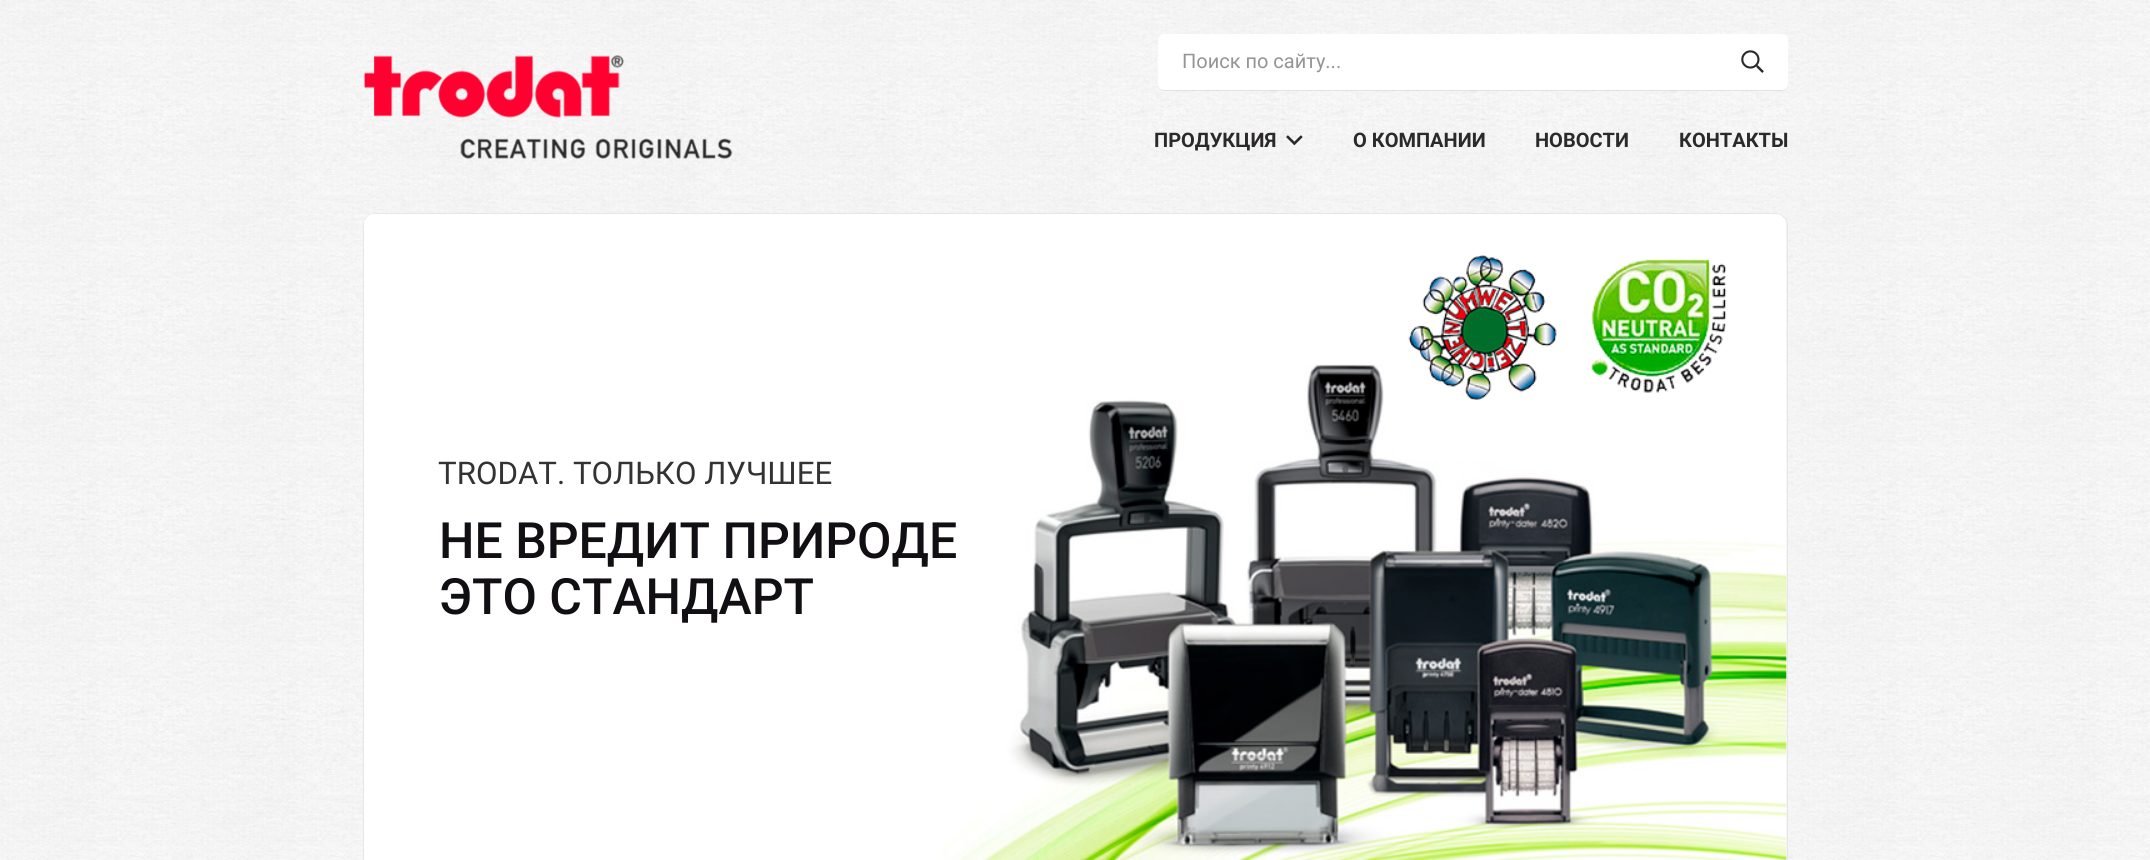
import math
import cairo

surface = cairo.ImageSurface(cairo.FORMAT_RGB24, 2150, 860)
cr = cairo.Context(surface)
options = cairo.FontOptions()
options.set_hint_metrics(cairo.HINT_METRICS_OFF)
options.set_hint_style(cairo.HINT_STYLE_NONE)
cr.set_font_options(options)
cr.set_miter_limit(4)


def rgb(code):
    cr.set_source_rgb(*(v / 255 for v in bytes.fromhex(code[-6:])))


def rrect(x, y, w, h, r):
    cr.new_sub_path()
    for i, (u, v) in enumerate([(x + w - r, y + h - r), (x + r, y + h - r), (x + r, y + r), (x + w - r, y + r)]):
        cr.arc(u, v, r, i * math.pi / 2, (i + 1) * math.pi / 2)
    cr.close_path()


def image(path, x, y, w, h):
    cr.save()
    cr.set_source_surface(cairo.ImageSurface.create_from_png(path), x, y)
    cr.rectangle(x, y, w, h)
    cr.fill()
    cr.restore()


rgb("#ffffff")
cr.paint()
image("img/1.png", 0, 0, 2150, 860)
image("img/2.png", 364, 55, 369, 104)
cr.set_source_rgba(0, 0, 0, 0.08)
cr.new_path()
cr.move_to(1158, 87)
cr.curve_to(1159, 89, 1161, 91, 1164, 91)
cr.line_to(1782, 91)
cr.curve_to(1785, 91, 1788, 88, 1788, 85)
cr.line_to(1788, 41)
cr.line_to(1787, 38)
cr.line_to(1788, 84)
cr.curve_to(1788, 87, 1785, 90, 1781, 90)
cr.line_to(1164, 90)
cr.curve_to(1161, 90, 1159, 89, 1158, 87)
cr.close_path()
cr.fill()
rgb("#ffffff")
rrect(1158, 34, 630, 56, 6)
cr.fill()
image("img/3.png", 1741, 50, 23, 23)
image("img/4.png", 1286, 135, 17, 11)
rrect(363.5, 213.5, 1424, 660, 12.5)
rgb("#e6e6e6")
cr.set_line_width(1)
cr.stroke()
image("img/5.png", 364, 214, 1422, 646)
image("img/8.png", 940, 364, 847, 496)
image("img/6.png", 1408, 255, 149, 145)
image("img/7.png", 1591, 258, 136, 135)
cr.select_font_face("Roboto")
cr.set_font_size(20)
rgb("#959495")
cr.move_to(1182, 68)
cr.show_text("Поиск по сайту...")
cr.select_font_face("Roboto", cairo.FONT_SLANT_NORMAL, cairo.FONT_WEIGHT_BOLD)
rgb("#2b292a")
for x, y, s in [
    (1154, 147, "ПРОДУКЦИЯ"),
    (1353, 147, "О КОМПАНИИ"),
    (1535, 147, "НОВОСТИ"),
    (1679, 147, "КОНТАКТЫ"),
]:
    cr.move_to(x, y)
    cr.show_text(s)
cr.select_font_face("Roboto")
cr.set_font_size(31.25)
rgb("#333333")
cr.move_to(438, 484)
cr.show_text("TRODAT. ТОЛЬКО ЛУЧШЕЕ")
cr.select_font_face("Roboto Medium")
cr.set_font_size(50)
rgb("#110f14")
cr.move_to(439, 558)
cr.show_text("НЕ ВРЕДИТ ПРИРОДЕ")
cr.move_to(439, 614)
cr.show_text("ЭТО СТАНДАРТ")
surface.write_to_png("page.png")
